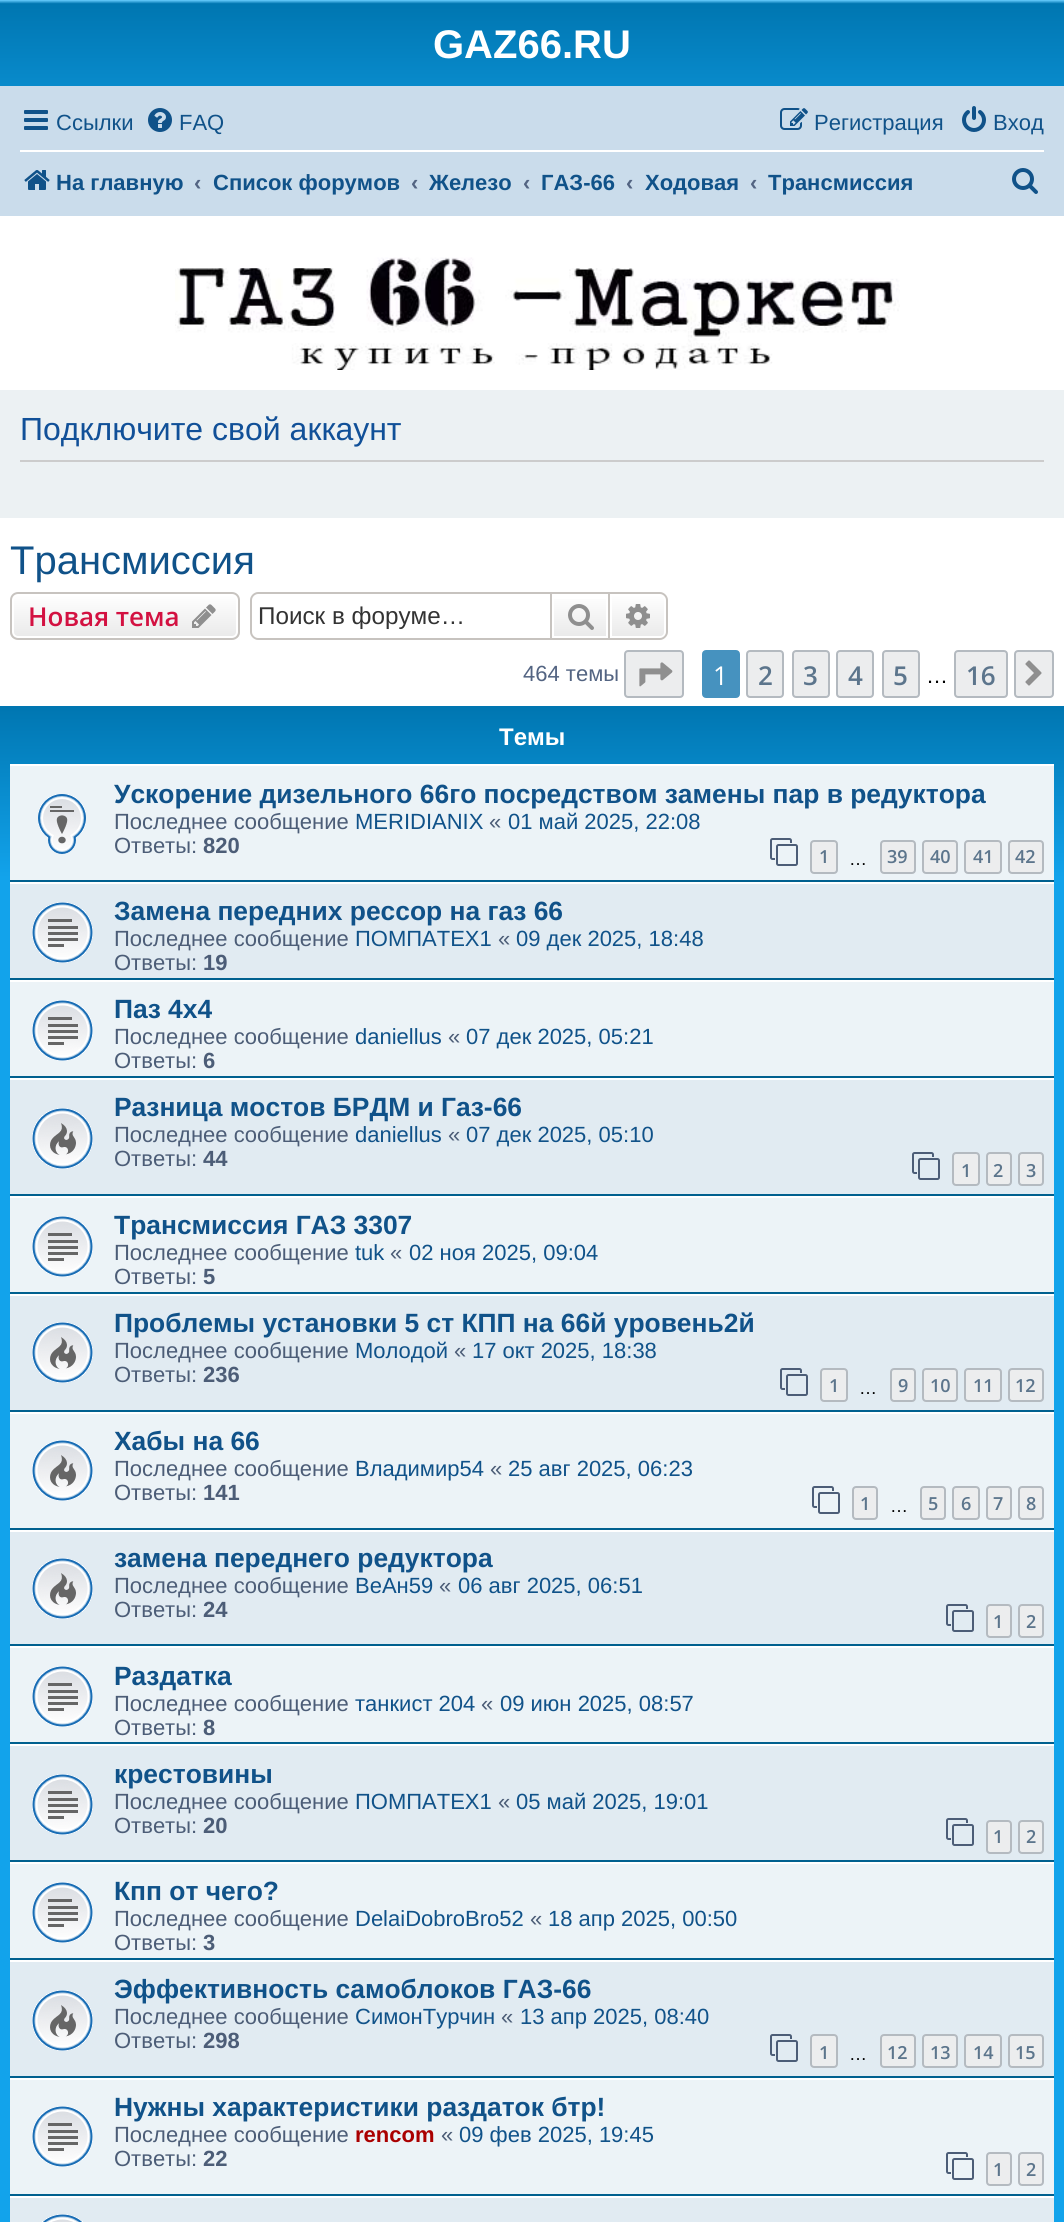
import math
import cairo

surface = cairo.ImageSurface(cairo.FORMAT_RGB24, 1064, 2222)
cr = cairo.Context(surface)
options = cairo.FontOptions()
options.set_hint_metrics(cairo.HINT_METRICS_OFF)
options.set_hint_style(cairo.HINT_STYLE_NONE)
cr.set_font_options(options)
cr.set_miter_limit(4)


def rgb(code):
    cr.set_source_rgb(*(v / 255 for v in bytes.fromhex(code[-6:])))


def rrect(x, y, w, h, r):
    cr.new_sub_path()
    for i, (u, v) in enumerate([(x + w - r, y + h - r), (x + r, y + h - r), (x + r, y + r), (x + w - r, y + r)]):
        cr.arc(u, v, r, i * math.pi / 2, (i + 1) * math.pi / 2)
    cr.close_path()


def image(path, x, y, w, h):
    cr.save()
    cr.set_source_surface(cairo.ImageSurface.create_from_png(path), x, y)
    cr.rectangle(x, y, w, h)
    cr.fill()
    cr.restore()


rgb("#ffffff")
cr.paint()
gradient = cairo.LinearGradient(532, 0, 532, 184)
gradient.add_color_stop_rgba(0, 0.416, 0.808, 1, 1)
gradient.add_color_stop_rgba(0.02, 0, 0.463, 0.694, 1)
gradient.add_color_stop_rgba(1, 0.071, 0.639, 0.922, 1)
cr.set_source(gradient)
cr.rectangle(0, 0, 1064, 86)
cr.fill()
rgb("#cadceb")
cr.rectangle(0, 86, 1064, 130)
cr.fill()
image("img/1.png", 24, 110, 24, 20)
image("img/2.png", 148, 108, 24, 24)
image("img/3.png", 780, 108, 28, 22)
image("img/4.png", 962, 106, 24, 26)
rgb("#ffffff")
cr.rectangle(20, 150, 1024, 2)
cr.fill()
image("img/5.png", 24, 170, 26, 20)
image("img/6.png", 1012, 168, 26, 26)
image("img/7.png", 175, 257, 725, 113)
rgb("#ecf1f3")
cr.rectangle(0, 390, 1064, 128)
cr.fill()
rgb("#cccccc")
cr.rectangle(20, 460, 1024, 2)
cr.fill()
cr.save()
rrect(10, 592, 230, 48, 8)
cr.clip()
gradient = cairo.LinearGradient(125, 594, 125, 638)
gradient.add_color_stop_rgba(0, 1, 1, 1, 1)
gradient.add_color_stop_rgba(1, 0.914, 0.914, 0.914, 1)
cr.set_source(gradient)
cr.rectangle(10, 594, 230, 44)
cr.fill()
cr.restore()
rrect(13, 595, 224, 42, 5)
rgb("#ffffff")
cr.stroke()
rrect(11, 593, 228, 46, 7)
rgb("#c7c3bf")
cr.stroke()
image("img/8.png", 192, 604, 24, 24)
cr.set_fill_rule(cairo.FILL_RULE_EVEN_ODD)
cr.new_path()
cr.move_to(258, 592)
cr.line_to(550, 592)
cr.line_to(550, 640)
cr.line_to(258, 640)
cr.curve_to(254, 640, 250, 636, 250, 632)
cr.line_to(250, 600)
cr.curve_to(250, 596, 254, 592, 258, 592)
cr.close_path()
cr.move_to(258, 594)
cr.line_to(550, 594)
cr.line_to(550, 638)
cr.line_to(258, 638)
cr.curve_to(255, 638, 252, 635, 252, 632)
cr.line_to(252, 600)
cr.curve_to(252, 597, 255, 594, 258, 594)
cr.close_path()
cr.fill()
gradient = cairo.LinearGradient(580, 594, 580, 638)
gradient.add_color_stop_rgba(0, 1, 1, 1, 1)
gradient.add_color_stop_rgba(1, 0.914, 0.914, 0.914, 1)
cr.set_source(gradient)
cr.rectangle(554, 599, 52, 37)
cr.fill()
cr.rectangle(551, 593, 58, 46)
rgb("#c7c3bf")
cr.stroke()
image("img/9.png", 568, 604, 26, 26)
gradient = cairo.LinearGradient(638, 594, 638, 638)
gradient.add_color_stop_rgba(0, 1, 1, 1, 1)
gradient.add_color_stop_rgba(1, 0.914, 0.914, 0.914, 1)
cr.set_source(gradient)
cr.new_path()
cr.move_to(611, 595)
cr.line_to(660, 595)
cr.curve_to(663, 595, 665, 597, 665, 600)
cr.line_to(665, 632)
cr.curve_to(665, 635, 663, 637, 660, 637)
cr.line_to(611, 637)
cr.close_path()
cr.fill_preserve()
rgb("#ffffff")
cr.stroke()
rgb("#c7c3bf")
cr.new_path()
cr.move_to(610, 592)
cr.line_to(660, 592)
cr.curve_to(664, 592, 668, 596, 668, 600)
cr.line_to(668, 632)
cr.curve_to(668, 636, 664, 640, 660, 640)
cr.line_to(610, 640)
cr.close_path()
cr.move_to(610, 594)
cr.line_to(660, 594)
cr.curve_to(663, 594, 666, 597, 666, 600)
cr.line_to(666, 632)
cr.curve_to(666, 635, 663, 638, 660, 638)
cr.line_to(610, 638)
cr.close_path()
cr.fill()
image("img/10.png", 626, 604, 24, 24)
rgb("#ecedee")
rrect(625, 651, 58, 46, 3)
cr.fill_preserve()
rgb("#b4bac0")
cr.stroke()
image("img/11.png", 639, 662, 34, 25)
rgb("#4692bf")
rrect(703, 651, 36, 46, 3)
cr.fill_preserve()
cr.stroke()
rgb("#ecedee")
rrect(747, 651, 36, 46, 3)
cr.fill_preserve()
rgb("#b4bac0")
cr.stroke()
rgb("#ecedee")
rrect(793, 651, 36, 46, 3)
cr.fill_preserve()
rgb("#b4bac0")
cr.stroke()
rgb("#ecedee")
rrect(837, 651, 36, 46, 3)
cr.fill_preserve()
rgb("#b4bac0")
cr.stroke()
rgb("#ecedee")
rrect(883, 651, 36, 46, 3)
cr.fill_preserve()
rgb("#b4bac0")
cr.stroke()
rgb("#ecedee")
rrect(955, 651, 52, 46, 3)
cr.fill_preserve()
rgb("#b4bac0")
cr.stroke()
rgb("#ecedee")
rrect(1015, 651, 38, 46, 3)
cr.fill_preserve()
rgb("#b4bac0")
cr.stroke()
image("img/12.png", 1025, 660, 17, 26)
gradient = cairo.LinearGradient(532, 706, 532, 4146)
gradient.add_color_stop_rgba(0, 0.416, 0.808, 1, 1)
gradient.add_color_stop_rgba(0, 0, 0.463, 0.694, 1)
gradient.add_color_stop_rgba(0.05, 0.071, 0.639, 0.922, 1)
gradient.add_color_stop_rgba(1, 0.071, 0.639, 0.922, 1)
cr.set_source(gradient)
cr.rectangle(0, 706, 1064, 1516)
cr.fill()
for x, y, w, h, color in [
    (10, 766, 1044, 114, "#ecf3f7"),
    (10, 764, 1044, 2, "#ffffff"),
    (10, 880, 1044, 2, "#00608f"),
]:
    rgb(color)
    cr.rectangle(x, y, w, h)
    cr.fill()
image("img/13.png", 38, 794, 48, 60)
image("img/14.png", 770, 838, 28, 28)
rgb("#ecedee")
rrect(811, 841, 26, 32, 3)
cr.fill_preserve()
rgb("#b4bac0")
cr.stroke()
rgb("#ecedee")
rrect(881, 841, 34, 32, 3)
cr.fill_preserve()
rgb("#b4bac0")
cr.stroke()
rgb("#ecedee")
rrect(923, 841, 34, 32, 3)
cr.fill_preserve()
rgb("#b4bac0")
cr.stroke()
rgb("#ecedee")
rrect(965, 841, 36, 32, 3)
cr.fill_preserve()
rgb("#b4bac0")
cr.stroke()
rgb("#ecedee")
rrect(1009, 841, 34, 32, 3)
cr.fill_preserve()
rgb("#b4bac0")
cr.stroke()
for x, y, w, h, color in [
    (10, 884, 1044, 94, "#e1ebf2"),
    (10, 882, 1044, 2, "#ffffff"),
    (10, 978, 1044, 2, "#00608f"),
]:
    rgb(color)
    cr.rectangle(x, y, w, h)
    cr.fill()
image("img/15.png", 32, 902, 61, 61)
for x, y, w, h, color in [
    (10, 982, 1044, 94, "#ecf3f7"),
    (10, 980, 1044, 2, "#ffffff"),
    (10, 1076, 1044, 2, "#00608f"),
]:
    rgb(color)
    cr.rectangle(x, y, w, h)
    cr.fill()
image("img/16.png", 32, 1000, 61, 61)
for x, y, w, h, color in [
    (10, 1080, 1044, 114, "#e1ebf2"),
    (10, 1078, 1044, 2, "#ffffff"),
    (10, 1194, 1044, 2, "#00608f"),
]:
    rgb(color)
    cr.rectangle(x, y, w, h)
    cr.fill()
image("img/17.png", 32, 1108, 61, 61)
image("img/18.png", 912, 1152, 28, 28)
rgb("#ecedee")
rrect(953, 1153, 26, 32, 3)
cr.fill_preserve()
rgb("#b4bac0")
cr.stroke()
rgb("#ecedee")
rrect(987, 1153, 24, 32, 3)
cr.fill_preserve()
rgb("#b4bac0")
cr.stroke()
rgb("#ecedee")
rrect(1019, 1153, 24, 32, 3)
cr.fill_preserve()
rgb("#b4bac0")
cr.stroke()
for x, y, w, h, color in [
    (10, 1198, 1044, 94, "#ecf3f7"),
    (10, 1196, 1044, 2, "#ffffff"),
    (10, 1292, 1044, 2, "#00608f"),
]:
    rgb(color)
    cr.rectangle(x, y, w, h)
    cr.fill()
image("img/16.png", 32, 1216, 61, 61)
for x, y, w, h, color in [
    (10, 1296, 1044, 114, "#e1ebf2"),
    (10, 1294, 1044, 2, "#ffffff"),
    (10, 1410, 1044, 2, "#00608f"),
]:
    rgb(color)
    cr.rectangle(x, y, w, h)
    cr.fill()
image("img/17.png", 32, 1322, 61, 61)
image("img/18.png", 780, 1368, 28, 28)
rgb("#ecedee")
rrect(821, 1369, 26, 32, 3)
cr.fill_preserve()
rgb("#b4bac0")
cr.stroke()
rgb("#ecedee")
rrect(891, 1369, 24, 32, 3)
cr.fill_preserve()
rgb("#b4bac0")
cr.stroke()
rgb("#ecedee")
rrect(923, 1369, 34, 32, 3)
cr.fill_preserve()
rgb("#b4bac0")
cr.stroke()
rgb("#ecedee")
rrect(965, 1369, 36, 32, 3)
cr.fill_preserve()
rgb("#b4bac0")
cr.stroke()
rgb("#ecedee")
rrect(1009, 1369, 34, 32, 3)
cr.fill_preserve()
rgb("#b4bac0")
cr.stroke()
for x, y, w, h, color in [
    (10, 1414, 1044, 114, "#ecf3f7"),
    (10, 1412, 1044, 2, "#ffffff"),
    (10, 1528, 1044, 2, "#00608f"),
]:
    rgb(color)
    cr.rectangle(x, y, w, h)
    cr.fill()
image("img/19.png", 32, 1440, 61, 61)
image("img/14.png", 812, 1486, 28, 28)
rgb("#ecedee")
rrect(853, 1487, 24, 32, 3)
cr.fill_preserve()
rgb("#b4bac0")
cr.stroke()
rgb("#ecedee")
rrect(921, 1487, 24, 32, 3)
cr.fill_preserve()
rgb("#b4bac0")
cr.stroke()
rgb("#ecedee")
rrect(953, 1487, 26, 32, 3)
cr.fill_preserve()
rgb("#b4bac0")
cr.stroke()
rgb("#ecedee")
rrect(987, 1487, 24, 32, 3)
cr.fill_preserve()
rgb("#b4bac0")
cr.stroke()
rgb("#ecedee")
rrect(1019, 1487, 24, 32, 3)
cr.fill_preserve()
rgb("#b4bac0")
cr.stroke()
for x, y, w, h, color in [
    (10, 1532, 1044, 112, "#e1ebf2"),
    (10, 1530, 1044, 2, "#ffffff"),
    (10, 1644, 1044, 2, "#00608f"),
]:
    rgb(color)
    cr.rectangle(x, y, w, h)
    cr.fill()
image("img/17.png", 32, 1558, 61, 61)
image("img/18.png", 946, 1604, 28, 28)
rgb("#ecedee")
rrect(987, 1605, 24, 32, 3)
cr.fill_preserve()
rgb("#b4bac0")
cr.stroke()
rgb("#ecedee")
rrect(1019, 1605, 24, 32, 3)
cr.fill_preserve()
rgb("#b4bac0")
cr.stroke()
for x, y, w, h, color in [
    (10, 1648, 1044, 94, "#ecf3f7"),
    (10, 1646, 1044, 2, "#ffffff"),
    (10, 1742, 1044, 2, "#00608f"),
]:
    rgb(color)
    cr.rectangle(x, y, w, h)
    cr.fill()
image("img/16.png", 32, 1666, 61, 61)
for x, y, w, h, color in [
    (10, 1746, 1044, 114, "#e1ebf2"),
    (10, 1744, 1044, 2, "#ffffff"),
    (10, 1860, 1044, 2, "#00608f"),
]:
    rgb(color)
    cr.rectangle(x, y, w, h)
    cr.fill()
image("img/15.png", 32, 1774, 61, 61)
image("img/18.png", 946, 1818, 28, 28)
rgb("#ecedee")
rrect(987, 1821, 24, 32, 3)
cr.fill_preserve()
rgb("#b4bac0")
cr.stroke()
rgb("#ecedee")
rrect(1019, 1821, 24, 32, 3)
cr.fill_preserve()
rgb("#b4bac0")
cr.stroke()
for x, y, w, h, color in [
    (10, 1864, 1044, 94, "#ecf3f7"),
    (10, 1862, 1044, 2, "#ffffff"),
    (10, 1958, 1044, 2, "#00608f"),
]:
    rgb(color)
    cr.rectangle(x, y, w, h)
    cr.fill()
image("img/16.png", 32, 1882, 61, 61)
for x, y, w, h, color in [
    (10, 1962, 1044, 114, "#e1ebf2"),
    (10, 1960, 1044, 2, "#ffffff"),
    (10, 2076, 1044, 2, "#00608f"),
]:
    rgb(color)
    cr.rectangle(x, y, w, h)
    cr.fill()
image("img/17.png", 32, 1990, 61, 61)
image("img/18.png", 770, 2034, 28, 28)
rgb("#ecedee")
rrect(811, 2035, 26, 32, 3)
cr.fill_preserve()
rgb("#b4bac0")
cr.stroke()
rgb("#ecedee")
rrect(881, 2035, 34, 32, 3)
cr.fill_preserve()
rgb("#b4bac0")
cr.stroke()
rgb("#ecedee")
rrect(923, 2035, 34, 32, 3)
cr.fill_preserve()
rgb("#b4bac0")
cr.stroke()
rgb("#ecedee")
rrect(965, 2035, 36, 32, 3)
cr.fill_preserve()
rgb("#b4bac0")
cr.stroke()
rgb("#ecedee")
rrect(1009, 2035, 34, 32, 3)
cr.fill_preserve()
rgb("#b4bac0")
cr.stroke()
for x, y, w, h, color in [
    (10, 2080, 1044, 114, "#ecf3f7"),
    (10, 2078, 1044, 2, "#ffffff"),
    (10, 2194, 1044, 2, "#00608f"),
]:
    rgb(color)
    cr.rectangle(x, y, w, h)
    cr.fill()
image("img/16.png", 32, 2106, 61, 61)
image("img/14.png", 946, 2152, 28, 28)
rgb("#ecedee")
rrect(987, 2153, 24, 32, 3)
cr.fill_preserve()
rgb("#b4bac0")
cr.stroke()
rgb("#ecedee")
rrect(1019, 2153, 24, 32, 3)
cr.fill_preserve()
rgb("#b4bac0")
cr.stroke()
rgb("#e1ebf2")
cr.rectangle(10, 2198, 1044, 24)
cr.fill()
rgb("#ffffff")
cr.rectangle(10, 2196, 1044, 2)
cr.fill()
image("img/20.png", 42, 2214, 41, 8)
cr.select_font_face("Liberation Sans", cairo.FONT_SLANT_NORMAL, cairo.FONT_WEIGHT_BOLD)
cr.set_font_size(40)
cr.move_to(433, 58)
cr.show_text("GAZ66.RU")
cr.select_font_face("Liberation Sans")
cr.set_font_size(22)
rgb("#105289")
for x, y, s in [
    (56, 130, "Ссылки"),
    (179, 130, "FAQ"),
    (814, 130, "Регистрация"),
    (993, 130, "Вход"),
]:
    cr.move_to(x, y)
    cr.show_text(s)
cr.select_font_face("Liberation Sans", cairo.FONT_SLANT_NORMAL, cairo.FONT_WEIGHT_BOLD)
cr.move_to(56, 190)
cr.show_text("На главную")
rgb("#536482")
cr.move_to(194, 190)
cr.show_text("‹")
rgb("#105289")
cr.move_to(213, 190)
cr.show_text("Список форумов")
rgb("#536482")
cr.move_to(411, 190)
cr.show_text("‹")
rgb("#105289")
cr.move_to(429, 190)
cr.show_text("Железо")
rgb("#536482")
cr.move_to(523, 190)
cr.show_text("‹")
rgb("#105289")
cr.move_to(541, 190)
cr.show_text("ГАЗ-66")
rgb("#536482")
cr.move_to(626, 190)
cr.show_text("‹")
rgb("#105289")
cr.move_to(645, 190)
cr.show_text("Ходовая")
rgb("#536482")
cr.move_to(750, 190)
cr.show_text("‹")
rgb("#105289")
cr.move_to(768, 190)
cr.show_text("Трансмиссия")
cr.select_font_face("Liberation Sans")
cr.set_font_size(32)
rgb("#115098")
cr.move_to(20, 440)
cr.show_text("Подключите свой аккаунт")
cr.set_font_size(40)
rgb("#105289")
cr.move_to(10, 574)
cr.show_text("Трансмиссия")
cr.select_font_face("Open Sans SemiBold")
cr.set_font_size(26)
rgb("#d31141")
cr.move_to(28, 626)
cr.show_text("Новая тема")
cr.select_font_face("Liberation Sans")
cr.set_font_size(24.25)
rgb("#333333")
cr.move_to(258, 624)
cr.show_text("Поиск в форуме…")
cr.set_font_size(22)
rgb("#536482")
cr.move_to(523, 681)
cr.show_text("464 темы")
cr.select_font_face("Open Sans")
cr.set_font_size(26)
rgb("#ffffff")
cr.move_to(713, 685)
cr.show_text("1")
cr.select_font_face("Open Sans SemiBold")
rgb("#5c758c")
for x, y, s in [
    (758, 685, "2"),
    (803, 685, "3"),
    (848, 685, "4"),
    (893, 685, "5"),
]:
    cr.move_to(x, y)
    cr.show_text(s)
cr.select_font_face("Liberation Sans")
cr.set_font_size(22)
rgb("#000000")
cr.move_to(926, 683)
cr.show_text("…")
cr.select_font_face("Open Sans SemiBold")
cr.set_font_size(26)
rgb("#5c758c")
cr.move_to(966, 685)
cr.show_text("16")
cr.select_font_face("Liberation Sans", cairo.FONT_SLANT_NORMAL, cairo.FONT_WEIGHT_BOLD)
cr.set_font_size(24)
rgb("#ffffff")
cr.move_to(499, 745)
cr.show_text("Темы")
cr.set_font_size(26.4)
rgb("#105289")
cr.move_to(114, 803)
cr.show_text("Ускорение дизельного 66го посредством замены пар в редуктора")
cr.select_font_face("Liberation Sans")
cr.set_font_size(22)
rgb("#4c5d77")
cr.move_to(114, 829)
cr.show_text("Последнее сообщение")
rgb("#105289")
cr.move_to(355, 829)
cr.show_text("MERIDIANIX")
rgb("#4c5d77")
cr.move_to(489, 829)
cr.show_text("«")
rgb("#105289")
cr.move_to(508, 829)
cr.show_text("01 май 2025, 22:08")
rgb("#4c5d77")
cr.move_to(114, 853)
cr.show_text("Ответы:")
cr.select_font_face("Liberation Sans", cairo.FONT_SLANT_NORMAL, cairo.FONT_WEIGHT_BOLD)
cr.move_to(203, 853)
cr.show_text("820")
cr.select_font_face("Open Sans SemiBold")
cr.set_font_size(18)
rgb("#5c758c")
for x, y, s in [
    (819, 863, "1"),
    (887, 863, "39"),
    (930, 863, "40"),
    (973, 863, "41"),
    (1015, 863, "42"),
]:
    cr.move_to(x, y)
    cr.show_text(s)
cr.select_font_face("Liberation Sans")
rgb("#000000")
cr.move_to(849, 865)
cr.show_text("…")
cr.select_font_face("Liberation Sans", cairo.FONT_SLANT_NORMAL, cairo.FONT_WEIGHT_BOLD)
cr.set_font_size(26.4)
rgb("#105289")
cr.move_to(114, 920)
cr.show_text("Замена передних рессор на газ 66")
cr.select_font_face("Liberation Sans")
cr.set_font_size(22)
rgb("#4c5d77")
cr.move_to(114, 946)
cr.show_text("Последнее сообщение")
rgb("#105289")
cr.move_to(355, 946)
cr.show_text("ПОМПАТЕХ1")
rgb("#4c5d77")
cr.move_to(498, 946)
cr.show_text("«")
rgb("#105289")
cr.move_to(516, 946)
cr.show_text("09 дек 2025, 18:48")
rgb("#4c5d77")
cr.move_to(114, 970)
cr.show_text("Ответы:")
cr.select_font_face("Liberation Sans", cairo.FONT_SLANT_NORMAL, cairo.FONT_WEIGHT_BOLD)
cr.move_to(203, 970)
cr.show_text("19")
cr.set_font_size(26.4)
rgb("#105289")
cr.move_to(114, 1018)
cr.show_text("Паз 4х4")
cr.select_font_face("Liberation Sans")
cr.set_font_size(22)
rgb("#4c5d77")
cr.move_to(114, 1044)
cr.show_text("Последнее сообщение")
rgb("#105289")
cr.move_to(355, 1044)
cr.show_text("daniellus")
rgb("#4c5d77")
cr.move_to(448, 1044)
cr.show_text("«")
rgb("#105289")
cr.move_to(466, 1044)
cr.show_text("07 дек 2025, 05:21")
rgb("#4c5d77")
cr.move_to(114, 1068)
cr.show_text("Ответы:")
cr.select_font_face("Liberation Sans", cairo.FONT_SLANT_NORMAL, cairo.FONT_WEIGHT_BOLD)
cr.move_to(203, 1068)
cr.show_text("6")
cr.set_font_size(26.4)
rgb("#105289")
cr.move_to(114, 1116)
cr.show_text("Разница мостов БРДМ и Газ-66")
cr.select_font_face("Liberation Sans")
cr.set_font_size(22)
rgb("#4c5d77")
cr.move_to(114, 1142)
cr.show_text("Последнее сообщение")
rgb("#105289")
cr.move_to(355, 1142)
cr.show_text("daniellus")
rgb("#4c5d77")
cr.move_to(448, 1142)
cr.show_text("«")
rgb("#105289")
cr.move_to(466, 1142)
cr.show_text("07 дек 2025, 05:10")
rgb("#4c5d77")
cr.move_to(114, 1166)
cr.show_text("Ответы:")
cr.select_font_face("Liberation Sans", cairo.FONT_SLANT_NORMAL, cairo.FONT_WEIGHT_BOLD)
cr.move_to(203, 1166)
cr.show_text("44")
cr.select_font_face("Open Sans SemiBold")
cr.set_font_size(18)
rgb("#5c758c")
for x, y, s in [
    (961, 1177, "1"),
    (993, 1177, "2"),
    (1026, 1177, "3"),
]:
    cr.move_to(x, y)
    cr.show_text(s)
cr.select_font_face("Liberation Sans", cairo.FONT_SLANT_NORMAL, cairo.FONT_WEIGHT_BOLD)
cr.set_font_size(26.4)
rgb("#105289")
cr.move_to(114, 1234)
cr.show_text("Трансмиссия ГАЗ 3307")
cr.select_font_face("Liberation Sans")
cr.set_font_size(22)
rgb("#4c5d77")
cr.move_to(114, 1260)
cr.show_text("Последнее сообщение")
rgb("#105289")
cr.move_to(355, 1260)
cr.show_text("tuk")
rgb("#4c5d77")
cr.move_to(390, 1260)
cr.show_text("«")
rgb("#105289")
cr.move_to(409, 1260)
cr.show_text("02 ноя 2025, 09:04")
rgb("#4c5d77")
cr.move_to(114, 1284)
cr.show_text("Ответы:")
cr.select_font_face("Liberation Sans", cairo.FONT_SLANT_NORMAL, cairo.FONT_WEIGHT_BOLD)
cr.move_to(203, 1284)
cr.show_text("5")
cr.set_font_size(26.4)
rgb("#105289")
cr.move_to(114, 1332)
cr.show_text("Проблемы установки 5 ст КПП на 66й уровень2й")
cr.select_font_face("Liberation Sans")
cr.set_font_size(22)
rgb("#4c5d77")
cr.move_to(114, 1358)
cr.show_text("Последнее сообщение")
rgb("#105289")
cr.move_to(355, 1358)
cr.show_text("Молодой")
rgb("#4c5d77")
cr.move_to(454, 1358)
cr.show_text("«")
rgb("#105289")
cr.move_to(472, 1358)
cr.show_text("17 окт 2025, 18:38")
rgb("#4c5d77")
cr.move_to(114, 1382)
cr.show_text("Ответы:")
cr.select_font_face("Liberation Sans", cairo.FONT_SLANT_NORMAL, cairo.FONT_WEIGHT_BOLD)
cr.move_to(203, 1382)
cr.show_text("236")
cr.select_font_face("Open Sans SemiBold")
cr.set_font_size(18)
rgb("#5c758c")
for x, y, s in [
    (829, 1392, "1"),
    (898, 1392, "9"),
    (930, 1392, "10"),
    (973, 1392, "11"),
    (1015, 1392, "12"),
]:
    cr.move_to(x, y)
    cr.show_text(s)
cr.select_font_face("Liberation Sans")
rgb("#000000")
cr.move_to(859, 1394)
cr.show_text("…")
cr.select_font_face("Liberation Sans", cairo.FONT_SLANT_NORMAL, cairo.FONT_WEIGHT_BOLD)
cr.set_font_size(26.4)
rgb("#105289")
cr.move_to(114, 1450)
cr.show_text("Хабы на 66")
cr.select_font_face("Liberation Sans")
cr.set_font_size(22)
rgb("#4c5d77")
cr.move_to(114, 1476)
cr.show_text("Последнее сообщение")
rgb("#105289")
cr.move_to(355, 1476)
cr.show_text("Владимир54")
rgb("#4c5d77")
cr.move_to(490, 1476)
cr.show_text("«")
rgb("#105289")
cr.move_to(508, 1476)
cr.show_text("25 авг 2025, 06:23")
rgb("#4c5d77")
cr.move_to(114, 1500)
cr.show_text("Ответы:")
cr.select_font_face("Liberation Sans", cairo.FONT_SLANT_NORMAL, cairo.FONT_WEIGHT_BOLD)
cr.move_to(203, 1500)
cr.show_text("141")
cr.select_font_face("Open Sans SemiBold")
cr.set_font_size(18)
rgb("#5c758c")
cr.move_to(860, 1510)
cr.show_text("1")
cr.select_font_face("Liberation Sans")
rgb("#000000")
cr.move_to(890, 1512)
cr.show_text("…")
cr.select_font_face("Open Sans SemiBold")
rgb("#5c758c")
for x, y, s in [
    (928, 1510, "5"),
    (961, 1510, "6"),
    (993, 1510, "7"),
    (1026, 1510, "8"),
]:
    cr.move_to(x, y)
    cr.show_text(s)
cr.select_font_face("Liberation Sans", cairo.FONT_SLANT_NORMAL, cairo.FONT_WEIGHT_BOLD)
cr.set_font_size(26.4)
rgb("#105289")
cr.move_to(114, 1567)
cr.show_text("замена переднего редуктора")
cr.select_font_face("Liberation Sans")
cr.set_font_size(22)
rgb("#4c5d77")
cr.move_to(114, 1593)
cr.show_text("Последнее сообщение")
rgb("#105289")
cr.move_to(355, 1593)
cr.show_text("ВеАн59")
rgb("#4c5d77")
cr.move_to(439, 1593)
cr.show_text("«")
rgb("#105289")
cr.move_to(458, 1593)
cr.show_text("06 авг 2025, 06:51")
rgb("#4c5d77")
cr.move_to(114, 1617)
cr.show_text("Ответы:")
cr.select_font_face("Liberation Sans", cairo.FONT_SLANT_NORMAL, cairo.FONT_WEIGHT_BOLD)
cr.move_to(203, 1617)
cr.show_text("24")
cr.select_font_face("Open Sans SemiBold")
cr.set_font_size(18)
rgb("#5c758c")
cr.move_to(993, 1628)
cr.show_text("1")
cr.move_to(1026, 1628)
cr.show_text("2")
cr.select_font_face("Liberation Sans", cairo.FONT_SLANT_NORMAL, cairo.FONT_WEIGHT_BOLD)
cr.set_font_size(26.4)
rgb("#105289")
cr.move_to(114, 1685)
cr.show_text("Раздатка")
cr.select_font_face("Liberation Sans")
cr.set_font_size(22)
rgb("#4c5d77")
cr.move_to(114, 1711)
cr.show_text("Последнее сообщение")
rgb("#105289")
cr.move_to(355, 1711)
cr.show_text("танкист 204")
rgb("#4c5d77")
cr.move_to(481, 1711)
cr.show_text("«")
rgb("#105289")
cr.move_to(500, 1711)
cr.show_text("09 июн 2025, 08:57")
rgb("#4c5d77")
cr.move_to(114, 1735)
cr.show_text("Ответы:")
cr.select_font_face("Liberation Sans", cairo.FONT_SLANT_NORMAL, cairo.FONT_WEIGHT_BOLD)
cr.move_to(203, 1735)
cr.show_text("8")
cr.set_font_size(26.4)
rgb("#105289")
cr.move_to(114, 1783)
cr.show_text("крестовины")
cr.select_font_face("Liberation Sans")
cr.set_font_size(22)
rgb("#4c5d77")
cr.move_to(114, 1809)
cr.show_text("Последнее сообщение")
rgb("#105289")
cr.move_to(355, 1809)
cr.show_text("ПОМПАТЕХ1")
rgb("#4c5d77")
cr.move_to(498, 1809)
cr.show_text("«")
rgb("#105289")
cr.move_to(516, 1809)
cr.show_text("05 май 2025, 19:01")
rgb("#4c5d77")
cr.move_to(114, 1833)
cr.show_text("Ответы:")
cr.select_font_face("Liberation Sans", cairo.FONT_SLANT_NORMAL, cairo.FONT_WEIGHT_BOLD)
cr.move_to(203, 1833)
cr.show_text("20")
cr.select_font_face("Open Sans SemiBold")
cr.set_font_size(18)
rgb("#5c758c")
cr.move_to(993, 1843)
cr.show_text("1")
cr.move_to(1026, 1843)
cr.show_text("2")
cr.select_font_face("Liberation Sans", cairo.FONT_SLANT_NORMAL, cairo.FONT_WEIGHT_BOLD)
cr.set_font_size(26.4)
rgb("#105289")
cr.move_to(114, 1900)
cr.show_text("Кпп от чего?")
cr.select_font_face("Liberation Sans")
cr.set_font_size(22)
rgb("#4c5d77")
cr.move_to(114, 1926)
cr.show_text("Последнее сообщение")
rgb("#105289")
cr.move_to(355, 1926)
cr.show_text("DelaiDobroBro52")
rgb("#4c5d77")
cr.move_to(530, 1926)
cr.show_text("«")
rgb("#105289")
cr.move_to(548, 1926)
cr.show_text("18 апр 2025, 00:50")
rgb("#4c5d77")
cr.move_to(114, 1950)
cr.show_text("Ответы:")
cr.select_font_face("Liberation Sans", cairo.FONT_SLANT_NORMAL, cairo.FONT_WEIGHT_BOLD)
cr.move_to(203, 1950)
cr.show_text("3")
cr.set_font_size(26.4)
rgb("#105289")
cr.move_to(114, 1998)
cr.show_text("Эффективность самоблоков ГАЗ-66")
cr.select_font_face("Liberation Sans")
cr.set_font_size(22)
rgb("#4c5d77")
cr.move_to(114, 2024)
cr.show_text("Последнее сообщение")
rgb("#105289")
cr.move_to(355, 2024)
cr.show_text("СимонТурчин")
rgb("#4c5d77")
cr.move_to(501, 2024)
cr.show_text("«")
rgb("#105289")
cr.move_to(520, 2024)
cr.show_text("13 апр 2025, 08:40")
rgb("#4c5d77")
cr.move_to(114, 2048)
cr.show_text("Ответы:")
cr.select_font_face("Liberation Sans", cairo.FONT_SLANT_NORMAL, cairo.FONT_WEIGHT_BOLD)
cr.move_to(203, 2048)
cr.show_text("298")
cr.select_font_face("Open Sans SemiBold")
cr.set_font_size(18)
rgb("#5c758c")
cr.move_to(819, 2059)
cr.show_text("1")
cr.select_font_face("Liberation Sans")
rgb("#000000")
cr.move_to(849, 2060)
cr.show_text("…")
cr.select_font_face("Open Sans SemiBold")
rgb("#5c758c")
for x, y, s in [
    (887, 2059, "12"),
    (930, 2059, "13"),
    (973, 2059, "14"),
    (1015, 2059, "15"),
]:
    cr.move_to(x, y)
    cr.show_text(s)
cr.select_font_face("Liberation Sans", cairo.FONT_SLANT_NORMAL, cairo.FONT_WEIGHT_BOLD)
cr.set_font_size(26.4)
rgb("#105289")
cr.move_to(114, 2116)
cr.show_text("Нужны характеристики раздаток бтр!")
cr.select_font_face("Liberation Sans")
cr.set_font_size(22)
rgb("#4c5d77")
cr.move_to(114, 2142)
cr.show_text("Последнее сообщение")
cr.select_font_face("Liberation Sans", cairo.FONT_SLANT_NORMAL, cairo.FONT_WEIGHT_BOLD)
rgb("#aa0000")
cr.move_to(355, 2142)
cr.show_text("rencom")
cr.select_font_face("Liberation Sans")
rgb("#4c5d77")
cr.move_to(441, 2142)
cr.show_text("«")
rgb("#105289")
cr.move_to(459, 2142)
cr.show_text("09 фев 2025, 19:45")
rgb("#4c5d77")
cr.move_to(114, 2166)
cr.show_text("Ответы:")
cr.select_font_face("Liberation Sans", cairo.FONT_SLANT_NORMAL, cairo.FONT_WEIGHT_BOLD)
cr.move_to(203, 2166)
cr.show_text("22")
cr.select_font_face("Open Sans SemiBold")
cr.set_font_size(18)
rgb("#5c758c")
cr.move_to(993, 2176)
cr.show_text("1")
cr.move_to(1026, 2176)
cr.show_text("2")
surface.write_to_png("page.png")
